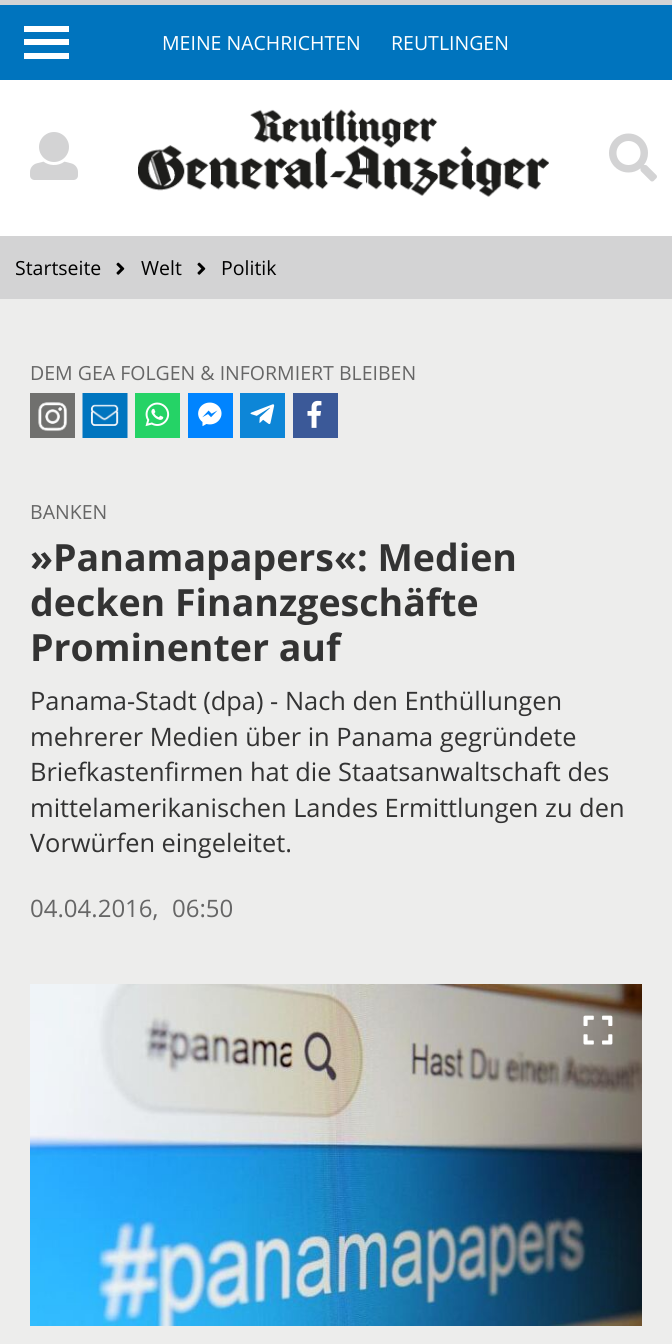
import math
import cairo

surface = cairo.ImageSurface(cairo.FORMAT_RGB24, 672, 1344)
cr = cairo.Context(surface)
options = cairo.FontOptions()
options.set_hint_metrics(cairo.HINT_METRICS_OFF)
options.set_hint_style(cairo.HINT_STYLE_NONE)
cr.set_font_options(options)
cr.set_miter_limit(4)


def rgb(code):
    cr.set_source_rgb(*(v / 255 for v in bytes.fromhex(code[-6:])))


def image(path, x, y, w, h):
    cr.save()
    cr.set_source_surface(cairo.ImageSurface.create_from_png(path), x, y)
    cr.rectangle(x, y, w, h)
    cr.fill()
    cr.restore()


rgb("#d3d3d4")
cr.paint()
for x, y, w, h, color in [
    (0, 299, 672, 1045, "#ededec"),
    (0, 80, 672, 156, "#ffffff"),
    (0, 5, 672, 75, "#0074be"),
    (24, 39, 45, 6, "#ffffff"),
    (24, 26, 45, 6, "#ffffff"),
    (24, 53, 45, 6, "#ffffff"),
]:
    rgb(color)
    cr.rectangle(x, y, w, h)
    cr.fill()
image("img/1.png", 30, 132, 48, 48)
image("img/2.png", 138, 109, 411, 88)
image("img/3.png", 609, 133, 48, 49)
image("img/4.png", 116, 262, 9, 13)
image("img/4.png", 197, 262, 9, 13)
image("img/5.png", 30, 393, 45, 45)
image("img/6.png", 82, 393, 46, 45)
rgb("#25d366")
cr.rectangle(135, 393, 45, 45)
cr.fill()
image("img/7.png", 145, 402, 25, 25)
rgb("#0084ff")
cr.rectangle(188, 393, 45, 45)
cr.fill()
image("img/8.png", 198, 402, 24, 25)
rgb("#0d86d7")
cr.rectangle(240, 393, 45, 45)
cr.fill()
image("img/9.png", 250, 404, 25, 21)
rgb("#3b5998")
cr.rectangle(293, 393, 45, 45)
cr.fill()
image("img/10.png", 307, 400, 15, 28)
image("img/11.png", 30, 984, 612, 342)
image("img/12.png", 583, 1015, 30, 30)
cr.select_font_face("Open Sans")
cr.set_font_size(19.5)
rgb("#ffffff")
cr.move_to(162, 50)
cr.show_text("MEINE NACHRICHTEN")
cr.move_to(391, 50)
cr.show_text("REUTLINGEN")
rgb("#000000")
for x, y, s in [
    (15, 275, "Startseite"),
    (141, 275, "Welt"),
    (221, 275, "Politik"),
]:
    cr.move_to(x, y)
    cr.show_text(s)
rgb("#666666")
cr.move_to(30, 380)
cr.show_text("DEM GEA FOLGEN & INFORMIERT BLEIBEN")
cr.move_to(30, 519)
cr.show_text("BANKEN")
cr.select_font_face("Open Sans", cairo.FONT_SLANT_NORMAL, cairo.FONT_WEIGHT_BOLD)
cr.set_font_size(37.5)
rgb("#333333")
for x, y, s in [
    (30, 571, "»Panamapapers«: Medien"),
    (30, 616, "decken Finanzgeschäfte"),
    (30, 661, "Prominenter auf"),
]:
    cr.move_to(x, y)
    cr.show_text(s)
cr.select_font_face("Open Sans")
cr.set_font_size(25.4)
for x, y, s in [
    (30, 710, "Panama-Stadt (dpa) - Nach den Enthüllungen"),
    (30, 746, "mehrerer Medien über in Panama gegründete"),
    (30, 781, "Briefkastenfirmen hat die Staatsanwaltschaft des"),
    (30, 817, "mittelamerikanischen Landes Ermittlungen zu den"),
    (30, 852, "Vorwürfen eingeleitet."),
]:
    cr.move_to(x, y)
    cr.show_text(s)
cr.set_font_size(24)
rgb("#666666")
cr.move_to(30, 917)
cr.show_text("04.04.2016,")
cr.move_to(172, 917)
cr.show_text("06:50")
surface.write_to_png("page.png")
